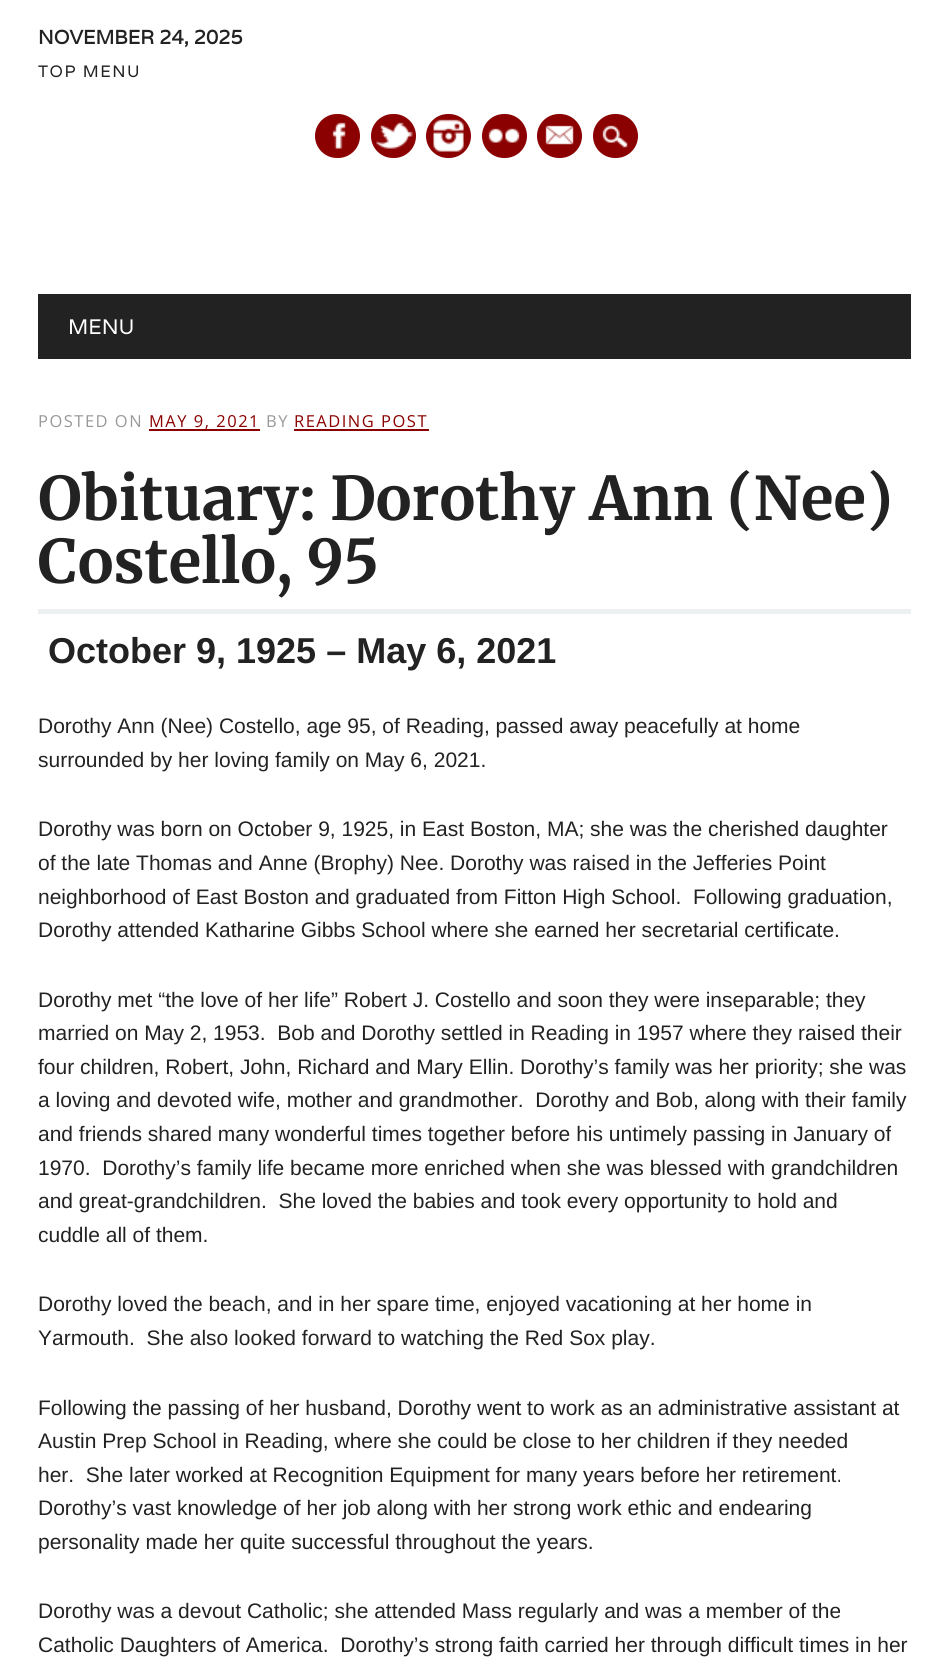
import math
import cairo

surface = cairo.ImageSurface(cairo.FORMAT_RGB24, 947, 1680)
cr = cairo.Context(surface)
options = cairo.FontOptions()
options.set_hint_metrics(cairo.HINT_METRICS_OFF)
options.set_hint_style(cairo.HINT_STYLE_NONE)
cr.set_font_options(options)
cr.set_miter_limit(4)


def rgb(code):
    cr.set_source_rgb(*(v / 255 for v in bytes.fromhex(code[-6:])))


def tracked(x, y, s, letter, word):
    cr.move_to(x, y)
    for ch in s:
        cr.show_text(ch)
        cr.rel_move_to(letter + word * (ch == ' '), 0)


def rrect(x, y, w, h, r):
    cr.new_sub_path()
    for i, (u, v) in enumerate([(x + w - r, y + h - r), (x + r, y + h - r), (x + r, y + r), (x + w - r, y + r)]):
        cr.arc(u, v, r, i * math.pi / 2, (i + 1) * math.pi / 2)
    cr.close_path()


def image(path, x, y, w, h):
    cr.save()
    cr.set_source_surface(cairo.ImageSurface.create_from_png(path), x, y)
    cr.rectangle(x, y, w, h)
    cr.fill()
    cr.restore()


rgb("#ffffff")
cr.paint()
rgb("#8b0000")
rrect(315, 114, 45, 44, 22)
cr.fill()
image("img/1.png", 332, 122, 14, 27)
rrect(371, 114, 45, 44, 22)
cr.fill()
image("img/2.png", 376, 122, 37, 27)
rrect(426, 114, 45, 44, 22)
cr.fill()
image("img/3.png", 433, 119, 31, 33)
rrect(482, 114, 45, 44, 22)
cr.fill()
image("img/4.png", 488, 128, 32, 15)
rrect(537, 114, 45, 44, 22)
cr.fill()
image("img/5.png", 545, 125, 29, 20)
rrect(593, 114, 45, 44, 22)
cr.fill()
image("img/6.png", 602, 125, 26, 23)
for x, y, w, h, color in [
    (38, 294, 873, 65, "#222222"),
    (149, 429, 111, 2, "#8b0000"),
    (294, 429, 135, 2, "#8b0000"),
    (38, 609, 873, 5, "#ecf0f1"),
]:
    rgb(color)
    cr.rectangle(x, y, w, h)
    cr.fill()
cr.select_font_face("Varela", cairo.FONT_SLANT_NORMAL, cairo.FONT_WEIGHT_BOLD)
cr.set_font_size(19.5)
rgb("#222222")
cr.move_to(38, 44)
cr.show_text("NOVEMBER 24, 2025")
cr.select_font_face("Varela")
cr.set_font_size(16.5)
tracked(38, 77, "TOP MENU", 1.5, 0)
cr.set_font_size(21)
rgb("#ffffff")
cr.move_to(68, 334)
cr.show_text("MENU")
cr.select_font_face("Open Sans")
cr.set_font_size(16.5)
rgb("#999999")
tracked(38, 427, "POSTED ON", 1.5, 0)
rgb("#8b0000")
tracked(149, 427, "MAY 9, 2021", 1.5, 0)
rgb("#999999")
tracked(266, 427, "BY", 1.5, 0)
rgb("#8b0000")
tracked(294, 427, "READING POST", 1.5, 0)
cr.select_font_face("Merriweather", cairo.FONT_SLANT_NORMAL, cairo.FONT_WEIGHT_BOLD)
cr.set_font_size(60)
rgb("#222222")
cr.move_to(38, 520)
cr.show_text("Obituary: Dorothy Ann (Nee)")
cr.move_to(38, 583)
cr.show_text("Costello, 95")
cr.select_font_face("Liberation Sans", cairo.FONT_SLANT_NORMAL, cairo.FONT_WEIGHT_BOLD)
cr.set_font_size(36)
cr.move_to(48, 663)
cr.show_text("October 9, 1925 – May 6, 2021")
cr.select_font_face("Liberation Sans")
cr.set_font_size(21)
for x, y, s in [
    (38, 733, "Dorothy Ann (Nee) Costello, age 95, of Reading, passed away peacefully at home"),
    (38, 767, "surrounded by her loving family on May 6, 2021."),
    (38, 836, "Dorothy was born on October 9, 1925, in East Boston, MA; she was the cherished daughter"),
    (38, 870, "of the late Thomas and Anne (Brophy) Nee. Dorothy was raised in the Jefferies Point"),
    (38, 904, "neighborhood of East Boston and graduated from Fitton High School.  Following graduation,"),
    (38, 937, "Dorothy attended Katharine Gibbs School where she earned her secretarial certificate."),
    (38, 1007, "Dorothy met “the love of her life” Robert J. Costello and soon they were inseparable; they"),
    (38, 1040, "married on May 2, 1953.  Bob and Dorothy settled in Reading in 1957 where they raised their"),
    (38, 1074, "four children, Robert, John, Richard and Mary Ellin. Dorothy’s family was her priority; she was"),
    (38, 1107, "a loving and devoted wife, mother and grandmother.  Dorothy and Bob, along with their family"),
    (38, 1141, "and friends shared many wonderful times together before his untimely passing in January of"),
    (38, 1175, "1970.  Dorothy’s family life became more enriched when she was blessed with grandchildren"),
    (38, 1208, "and great-grandchildren.  She loved the babies and took every opportunity to hold and"),
    (38, 1242, "cuddle all of them."),
    (38, 1311, "Dorothy loved the beach, and in her spare time, enjoyed vacationing at her home in"),
    (38, 1345, "Yarmouth.  She also looked forward to watching the Red Sox play."),
    (38, 1415, "Following the passing of her husband, Dorothy went to work as an administrative assistant at"),
    (38, 1448, "Austin Prep School in Reading, where she could be close to her children if they needed"),
    (38, 1482, "her.  She later worked at Recognition Equipment for many years before her retirement."),
    (38, 1515, "Dorothy’s vast knowledge of her job along with her strong work ethic and endearing"),
    (38, 1549, "personality made her quite successful throughout the years."),
    (38, 1618, "Dorothy was a devout Catholic; she attended Mass regularly and was a member of the"),
    (38, 1652, "Catholic Daughters of America.  Dorothy’s strong faith carried her through difficult times in her"),
]:
    cr.move_to(x, y)
    cr.show_text(s)
surface.write_to_png("page.png")
